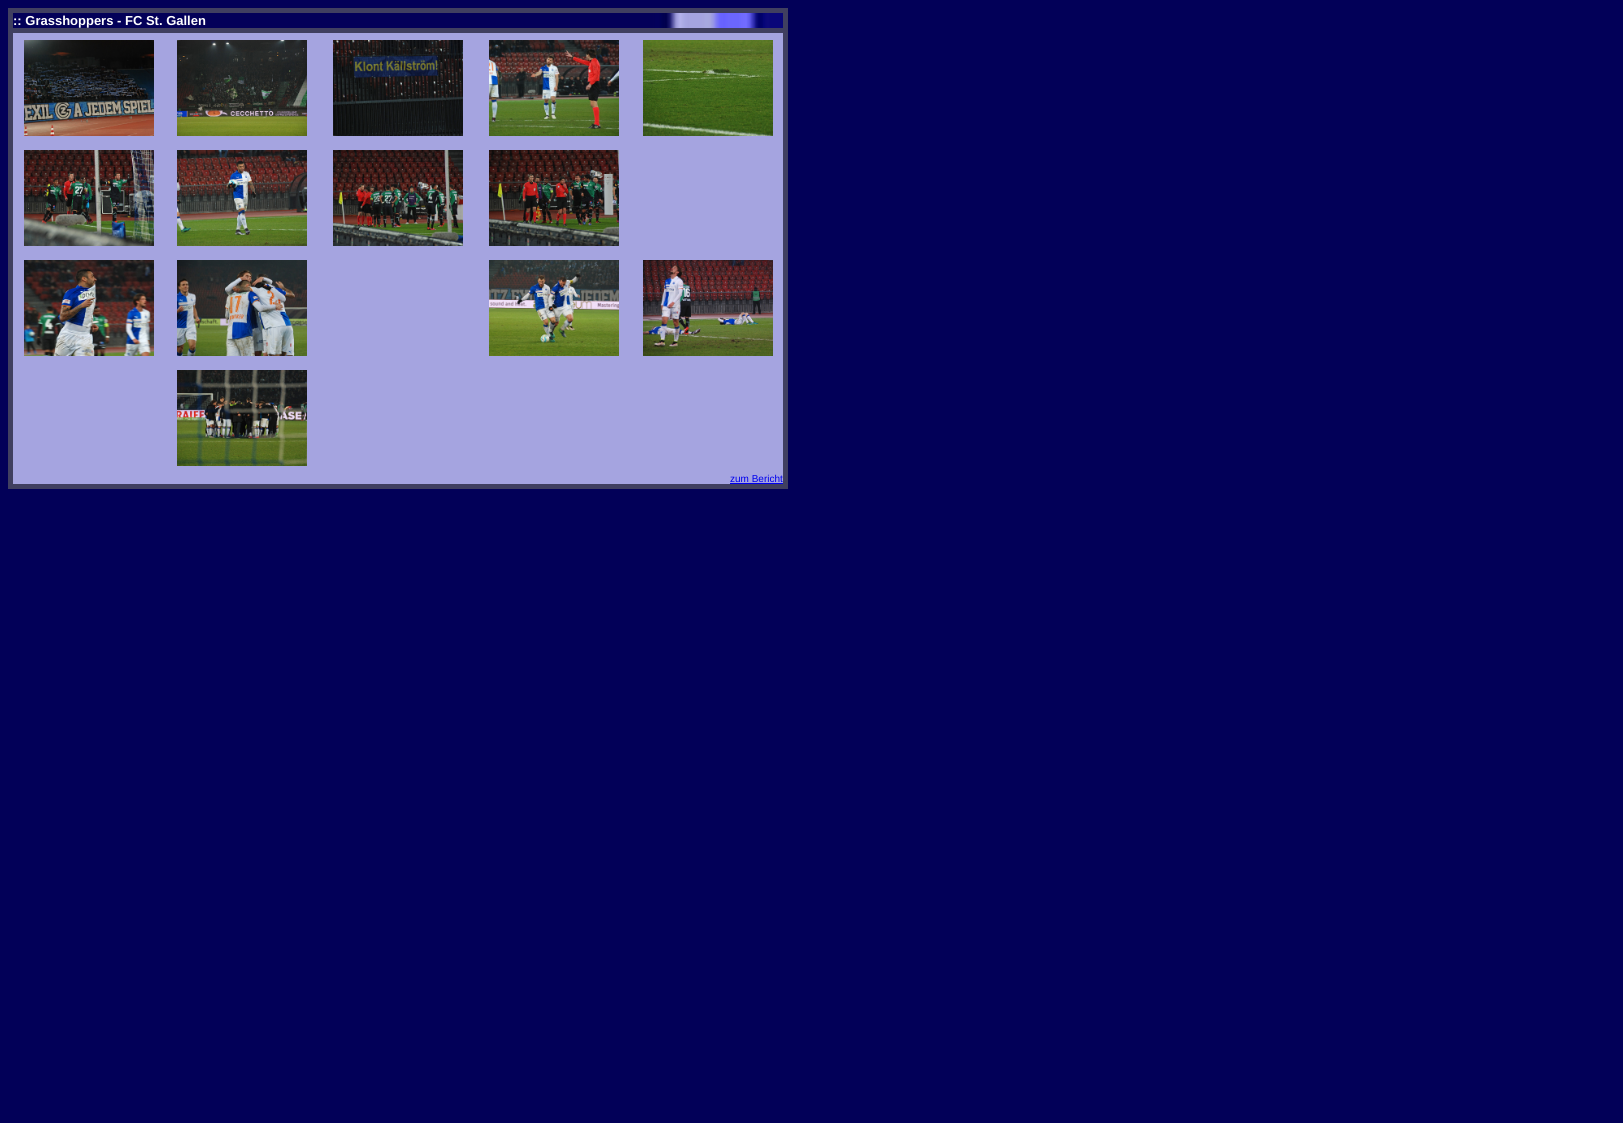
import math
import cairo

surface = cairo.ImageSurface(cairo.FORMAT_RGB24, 1623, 1123)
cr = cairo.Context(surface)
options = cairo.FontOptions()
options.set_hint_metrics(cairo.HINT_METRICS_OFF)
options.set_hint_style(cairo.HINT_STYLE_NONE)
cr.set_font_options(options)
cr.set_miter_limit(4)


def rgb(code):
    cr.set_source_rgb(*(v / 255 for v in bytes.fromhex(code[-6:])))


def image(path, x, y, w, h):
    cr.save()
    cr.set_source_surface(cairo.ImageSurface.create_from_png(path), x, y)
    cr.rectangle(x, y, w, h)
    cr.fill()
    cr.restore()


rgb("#020058")
cr.paint()
image("img/1.png", 13, 13, 770, 15)
cr.rectangle(10.5, 10.5, 775, 20)
rgb("#403f60")
cr.set_line_width(5)
cr.stroke()
rgb("#a5a4e0")
cr.rectangle(13, 33, 770, 451)
cr.fill()
rgb("#403f60")
cr.rectangle(8, 33, 5, 440)
cr.fill()
image("img/2.png", 24, 40, 130, 96)
image("img/3.png", 177, 40, 130, 96)
image("img/4.png", 333, 40, 130, 96)
image("img/5.png", 489, 40, 130, 96)
cr.rectangle(783, 33, 5, 456)
cr.fill()
image("img/6.png", 643, 40, 130, 96)
image("img/7.png", 24, 150, 130, 96)
image("img/8.png", 177, 150, 130, 96)
image("img/9.png", 333, 150, 130, 96)
image("img/10.png", 489, 150, 130, 96)
image("img/11.png", 24, 260, 130, 96)
image("img/12.png", 177, 260, 130, 96)
image("img/13.png", 489, 260, 130, 96)
image("img/14.png", 643, 260, 130, 96)
image("img/15.png", 177, 370, 130, 96)
for x, y, w, h, color in [
    (8, 484, 780, 5, "#403f60"),
    (8, 473, 5, 16, "#403f60"),
    (730, 483, 53, 1, "#0000ee"),
]:
    rgb(color)
    cr.rectangle(x, y, w, h)
    cr.fill()
cr.select_font_face("Liberation Sans", cairo.FONT_SLANT_NORMAL, cairo.FONT_WEIGHT_BOLD)
cr.set_font_size(13)
rgb("#ffffff")
cr.move_to(13, 25)
cr.show_text(":: Grasshoppers - FC St. Gallen")
cr.select_font_face("Liberation Sans")
cr.set_font_size(10)
rgb("#0000ee")
cr.move_to(730, 482)
cr.show_text("zum Bericht")
surface.write_to_png("page.png")
